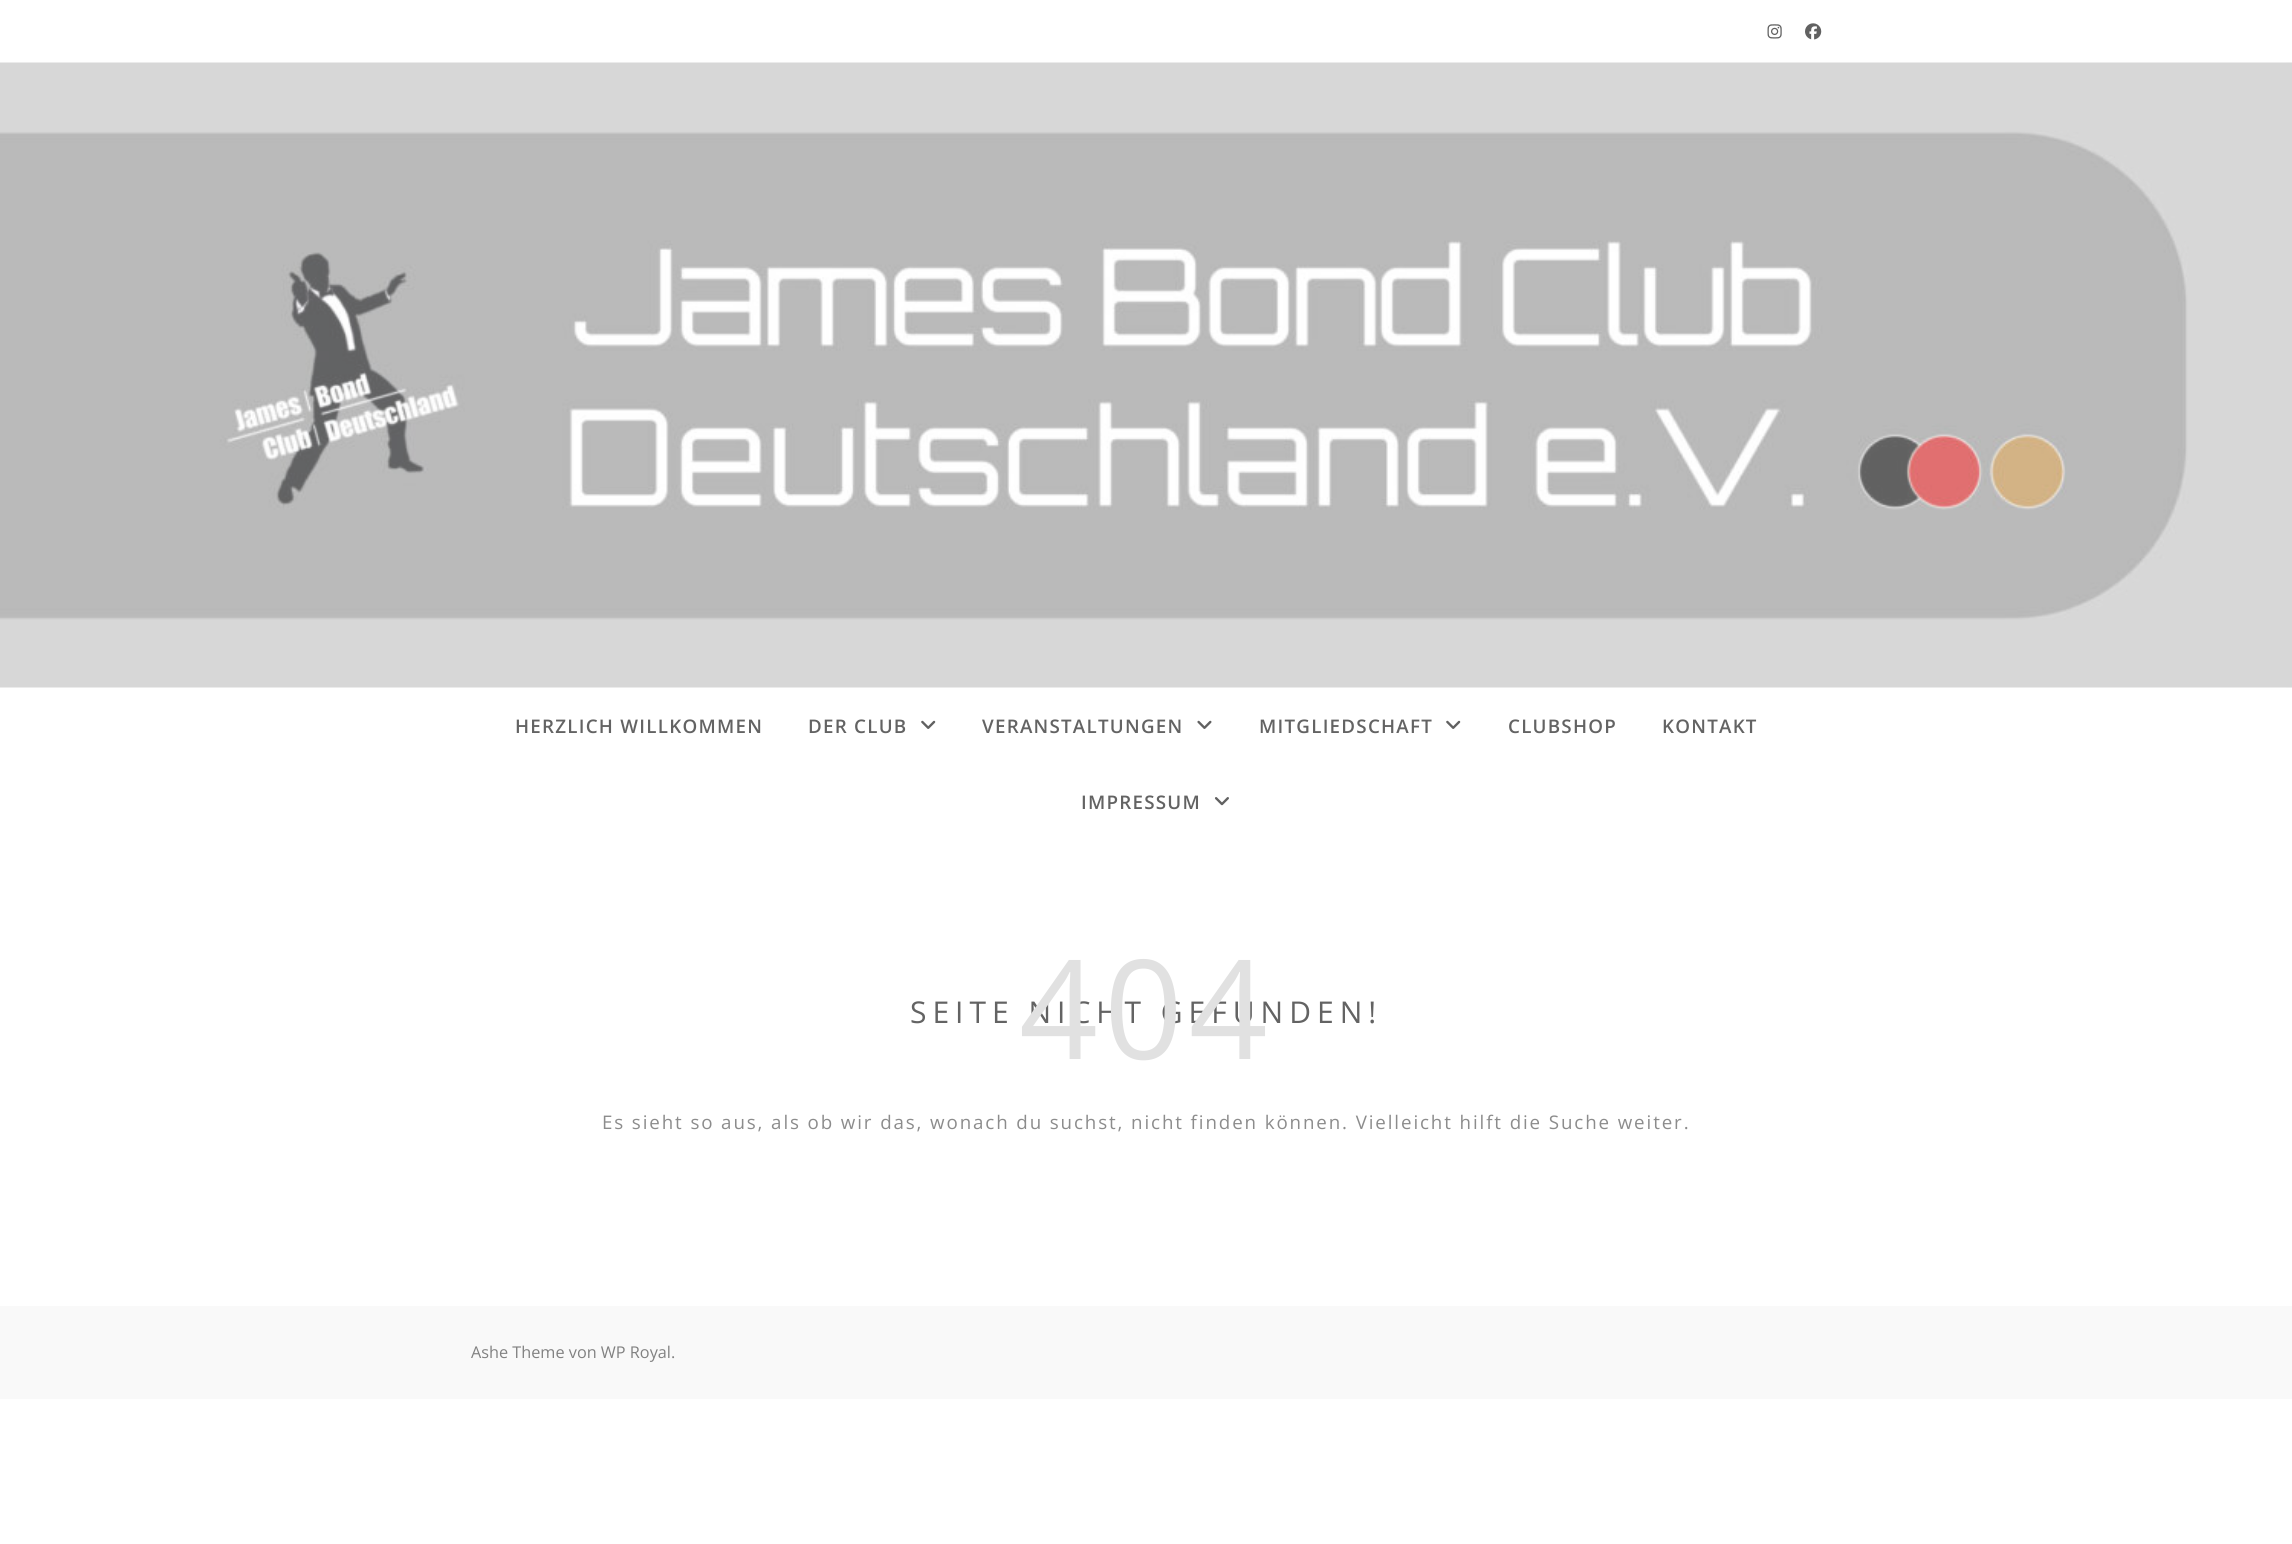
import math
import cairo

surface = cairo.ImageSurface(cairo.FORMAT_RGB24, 2292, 1544)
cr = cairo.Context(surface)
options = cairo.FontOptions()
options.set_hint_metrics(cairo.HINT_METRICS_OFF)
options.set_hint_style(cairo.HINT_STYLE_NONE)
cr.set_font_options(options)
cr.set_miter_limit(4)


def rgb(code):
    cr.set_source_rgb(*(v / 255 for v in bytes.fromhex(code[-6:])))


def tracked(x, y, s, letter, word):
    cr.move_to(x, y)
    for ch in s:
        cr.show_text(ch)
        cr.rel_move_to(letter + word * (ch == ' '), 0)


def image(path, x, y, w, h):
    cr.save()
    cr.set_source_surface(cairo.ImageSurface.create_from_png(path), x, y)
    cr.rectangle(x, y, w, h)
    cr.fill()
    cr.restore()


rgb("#ffffff")
cr.paint()
image("img/1.png", 1767, 24, 15, 15)
image("img/2.png", 1805, 23, 17, 17)
image("img/3.png", 0, 62, 2292, 626)
image("img/4.png", 921, 720, 15, 9)
image("img/5.png", 1197, 720, 15, 9)
image("img/4.png", 1446, 720, 15, 9)
image("img/6.png", 1214, 797, 15, 9)
rgb("#f9f9f9")
cr.rectangle(0, 1306, 2292, 93)
cr.fill()
cr.select_font_face("Open Sans SemiBold")
cr.set_font_size(18.75)
rgb("#636363")
for x, y, s in [
    (515, 733, "HERZLICH WILLKOMMEN"),
    (808, 733, "DER CLUB"),
    (982, 733, "VERANSTALTUNGEN"),
    (1259, 733, "MITGLIEDSCHAFT"),
    (1508, 733, "CLUBSHOP"),
    (1662, 733, "KONTAKT"),
    (1081, 809, "IMPRESSUM"),
]:
    tracked(x, y, s, 1.25, 0)
cr.select_font_face("Open Sans")
cr.set_font_size(30)
tracked(910, 1023, "SEITE NICHT GEFUNDEN!", 6, 0)
cr.set_font_size(138)
rgb("#e1e1e1")
tracked(1019, 1059, "404", 6, 0)
cr.set_font_size(18.75)
rgb("#8c8c8c")
tracked(602, 1129, "Es sieht so aus, als ob wir das, wonach du suchst, nicht finden können. Vielleicht hilft die Suche weiter.", 1.88, 0)
cr.set_font_size(16.25)
rgb("#818181")
cr.move_to(471, 1358)
cr.show_text("Ashe Theme von WP Royal.")
surface.write_to_png("page.png")
